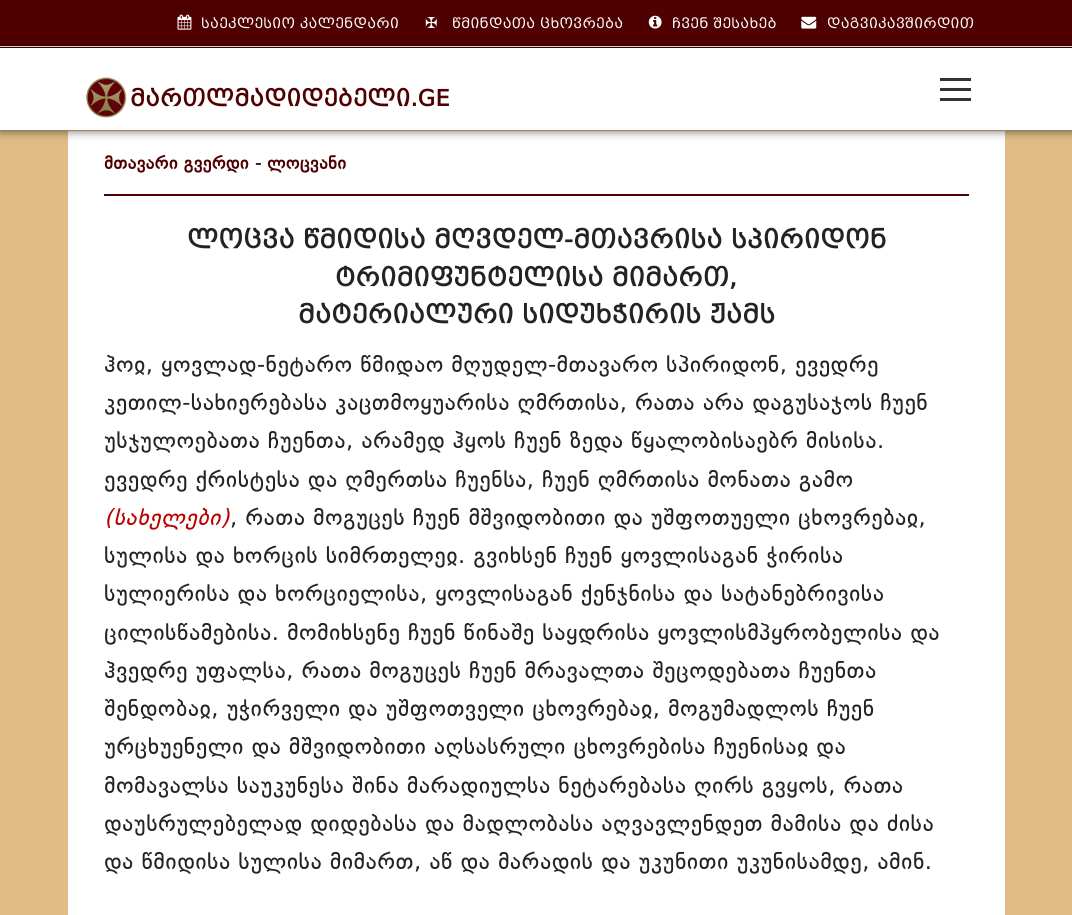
import math
import cairo

surface = cairo.ImageSurface(cairo.FORMAT_RGB24, 1072, 915)
cr = cairo.Context(surface)
options = cairo.FontOptions()
options.set_hint_metrics(cairo.HINT_METRICS_OFF)
options.set_hint_style(cairo.HINT_STYLE_NONE)
cr.set_font_options(options)
cr.set_miter_limit(4)


def rgb(code):
    cr.set_source_rgb(*(v / 255 for v in bytes.fromhex(code[-6:])))


def tracked(x, y, s, letter, word):
    cr.move_to(x, y)
    for ch in s:
        cr.show_text(ch)
        cr.rel_move_to(letter + word * (ch == ' '), 0)


def rrect(x, y, w, h, r):
    cr.new_sub_path()
    for i, (u, v) in enumerate([(x + w - r, y + h - r), (x + r, y + h - r), (x + r, y + r), (x + w - r, y + r)]):
        cr.arc(u, v, r, i * math.pi / 2, (i + 1) * math.pi / 2)
    cr.close_path()


def soft_shadow(x, y, w, h, r, blur, alpha):
    cr.push_group_with_content(cairo.CONTENT_ALPHA)
    cr.set_operator(cairo.OPERATOR_SOURCE)
    for i in range(15, -16, -2):
        e = blur * i / 6
        if min(w, h) + 2 * e > 0:
            cr.set_source_rgba(0, 0, 0, alpha * math.erfc((i - 1) / 8.5) / 2)
            rrect(x - e, y - e, w + 2 * e, h + 2 * e, max(0, min(r + e + blur * .6, min(w, h) / 2 + e)))
            cr.fill()
    cr.mask(cr.pop_group())


def image(path, x, y, w, h):
    cr.save()
    cr.set_source_surface(cairo.ImageSurface.create_from_png(path), x, y)
    cr.rectangle(x, y, w, h)
    cr.fill()
    cr.restore()


rgb("#e1bd85")
cr.paint()
rgb("#4f0101")
cr.rectangle(0, 0, 1072, 48)
cr.fill()
rgb("#ffffff")
cr.rectangle(0, 46, 1072, 1)
cr.fill()
image("img/1.png", 177, 14, 15, 16)
image("img/2.png", 648, 15, 14, 14)
image("img/3.png", 801, 16, 16, 13)
cr.rectangle(68, 131, 937, 784)
cr.fill()
rgb("#000000")
soft_shadow(0, 49, 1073, 82, 0, 5, 0.58)
rgb("#ffffff")
cr.rectangle(0, 48, 1072, 82)
cr.fill()
image("img/4.png", 86, 77, 41, 41)
for x, y, w, h, color in [
    (940, 88, 31, 3, "#333333"),
    (940, 78, 31, 3, "#333333"),
    (940, 98, 31, 3, "#333333"),
    (104, 194, 865, 2, "#4f0101"),
]:
    rgb(color)
    cr.rectangle(x, y, w, h)
    cr.fill()
cr.select_font_face("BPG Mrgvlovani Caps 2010")
cr.set_font_size(13.75)
rgb("#ffffff")
tracked(201, 28, "საეკლესიო კალენდარი", 0.25, 0)
cr.select_font_face("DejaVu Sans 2")
cr.set_font_size(15)
tracked(425, 28, "✠", 0.25, 0)
cr.select_font_face("BPG Mrgvlovani Caps 2010")
cr.set_font_size(13.75)
for x, y, s in [
    (452, 28, "წმინდათა ცხოვრება"),
    (672, 28, "ჩვენ შესახებ"),
    (827, 28, "დაგვიკავშირდით"),
]:
    tracked(x, y, s, 0.25, 0)
cr.select_font_face("BPG Mrgvlovani Caps 2010", cairo.FONT_SLANT_NORMAL, cairo.FONT_WEIGHT_BOLD)
cr.set_font_size(22.5)
rgb("#4f0101")
tracked(130, 106, "მართლმადიდებელი.GE", 0.25, 0)
cr.select_font_face("DejaVu Sans", cairo.FONT_SLANT_NORMAL, cairo.FONT_WEIGHT_BOLD)
cr.set_font_size(17.5)
tracked(104, 169, "მთავარი გვერდი", 0.25, 0)
rgb("#232323")
tracked(255, 169, "-", 0.25, 0)
rgb("#4f0101")
tracked(267, 169, "ლოცვანი", 0.25, 0)
cr.select_font_face("BPG Mrgvlovani Caps 2010", cairo.FONT_SLANT_NORMAL, cairo.FONT_WEIGHT_BOLD)
cr.set_font_size(25)
rgb("#232323")
for x, y, s in [
    (187, 248, "ლოცვა წმიდისა მღვდელ-მთავრისა სპირიდონ"),
    (335, 286, "ტრიმიფუნტელისა მიმართ,"),
    (298, 323, "მატერიალური სიდუხჭირის ჟამს"),
]:
    tracked(x, y, s, 0.25, 0)
cr.select_font_face("DejaVu Sans")
cr.set_font_size(22.5)
for x, y, s in [
    (104, 372, "ჰოჲ, ყოვლად-ნეტარო წმიდაო მღუდელ-მთავარო სპირიდონ, ევედრე"),
    (104, 410, "კეთილ-სახიერებასა კაცთმოყუარისა ღმრთისა, რათა არა დაგუსაჯოს ჩუენ"),
    (104, 448, "უსჯულოებათა ჩუენთა, არამედ ჰყოს ჩუენ ზედა წყალობისაებრ მისისა."),
    (104, 487, "ევედრე ქრისტესა და ღმერთსა ჩუენსა, ჩუენ ღმრთისა მონათა გამო"),
]:
    tracked(x, y, s, 0.45, 0)
cr.select_font_face("DejaVu Sans", cairo.FONT_SLANT_ITALIC)
rgb("#bb0000")
tracked(104, 525, "(სახელები)", 0.45, 0)
cr.select_font_face("DejaVu Sans")
rgb("#232323")
for x, y, s in [
    (230, 525, ", რათა მოგუცეს ჩუენ მშვიდობითი და უშფოთუელი ცხოვრებაჲ,"),
    (104, 563, "სულისა და ხორცის სიმრთელეჲ. გვიხსენ ჩუენ ყოვლისაგან ჭირისა"),
    (104, 601, "სულიერისა და ხორციელისა, ყოვლისაგან ქენჯნისა და სატანებრივისა"),
    (104, 640, "ცილისწამებისა. მომიხსენე ჩუენ წინაშე საყდრისა ყოვლისმპყრობელისა და"),
    (104, 678, "ჰვედრე უფალსა, რათა მოგუცეს ჩუენ მრავალთა შეცოდებათა ჩუენთა"),
    (104, 716, "შენდობაჲ, უჭირველი და უშფოთველი ცხოვრებაჲ, მოგუმადლოს ჩუენ"),
    (104, 754, "ურცხუენელი და მშვიდობითი აღსასრული ცხოვრებისა ჩუენისაჲ და"),
    (104, 793, "მომავალსა საუკუნესა შინა მარადიულსა ნეტარებასა ღირს გვყოს, რათა"),
    (104, 831, "დაუსრულებელად დიდებასა და მადლობასა აღვავლენდეთ მამისა და ძისა"),
    (104, 869, "და წმიდისა სულისა მიმართ, აწ და მარადის და უკუნითი უკუნისამდე, ამინ."),
]:
    tracked(x, y, s, 0.45, 0)
surface.write_to_png("page.png")
